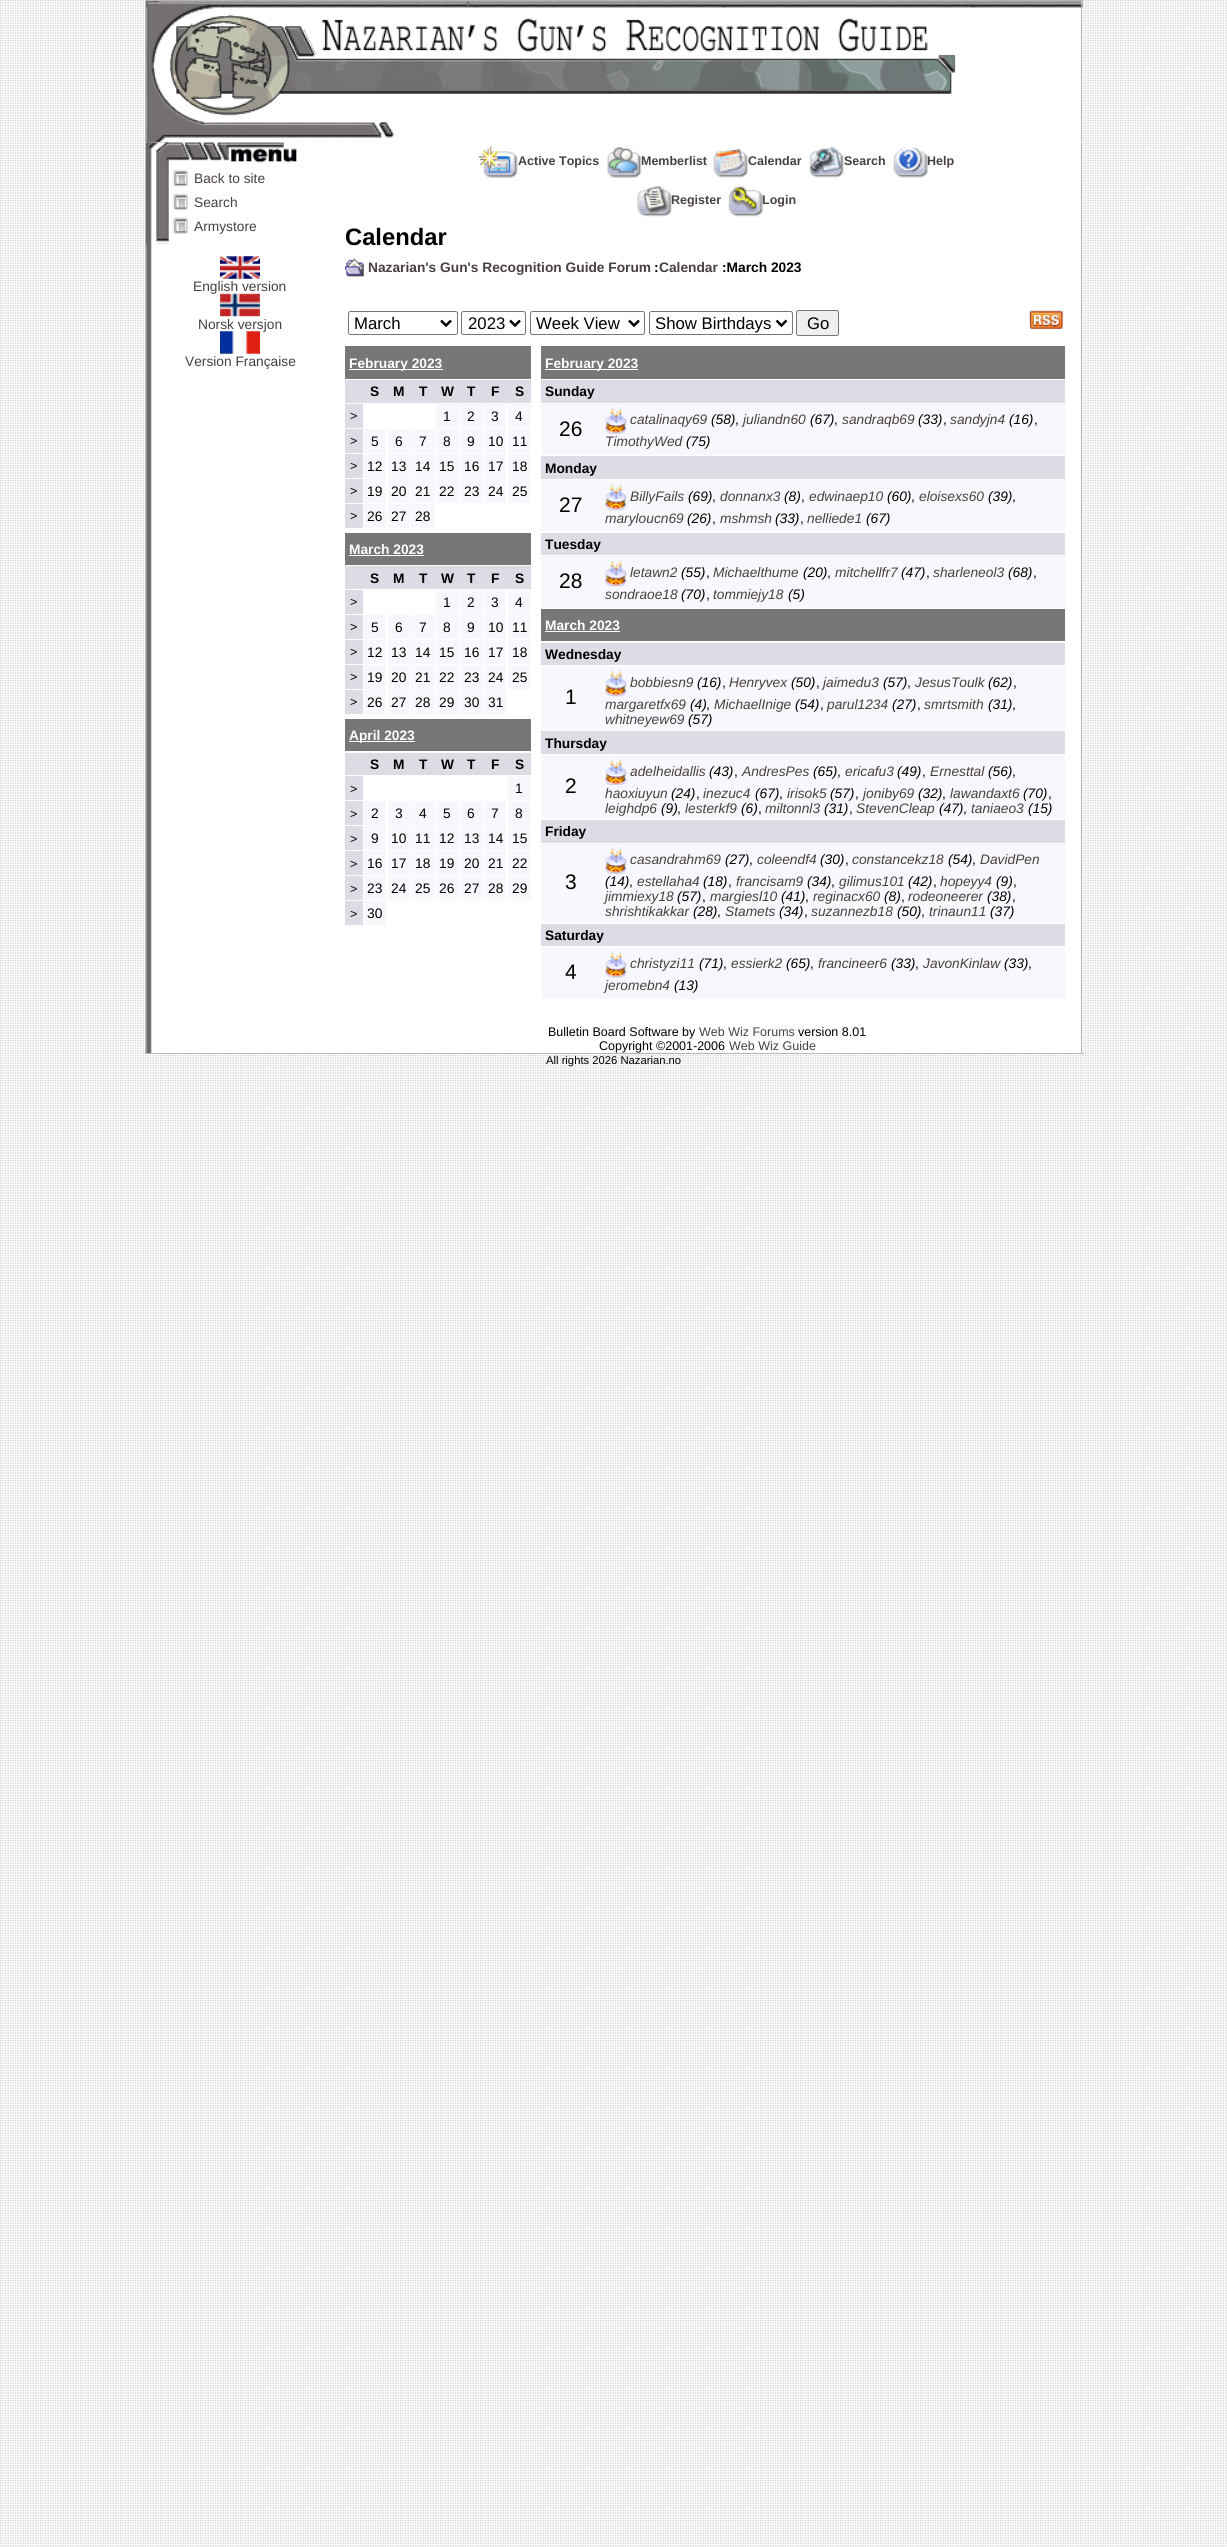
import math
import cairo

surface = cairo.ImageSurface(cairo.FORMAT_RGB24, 1227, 2547)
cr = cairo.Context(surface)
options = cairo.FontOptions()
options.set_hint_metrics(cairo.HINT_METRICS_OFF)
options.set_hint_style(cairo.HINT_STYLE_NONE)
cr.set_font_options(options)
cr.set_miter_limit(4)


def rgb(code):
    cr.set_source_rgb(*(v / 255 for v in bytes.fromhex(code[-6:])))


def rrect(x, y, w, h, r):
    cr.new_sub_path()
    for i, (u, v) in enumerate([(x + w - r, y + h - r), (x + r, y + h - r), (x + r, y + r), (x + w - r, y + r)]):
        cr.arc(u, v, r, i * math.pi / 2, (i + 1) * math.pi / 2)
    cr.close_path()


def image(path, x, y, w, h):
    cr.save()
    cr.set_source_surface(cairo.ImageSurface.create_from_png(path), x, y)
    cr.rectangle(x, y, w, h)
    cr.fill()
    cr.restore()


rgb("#ffffff")
cr.paint()
image("img/1.png", 0, 0, 1227, 2547)
image("img/2.png", 146, 1, 937, 142)
for x, y, w, h, color in [
    (145, 0, 938, 1, "#b4b4b4"),
    (1081, 0, 1, 143, "#b4b4b4"),
    (145, 0, 1, 143, "#b4b4b4"),
]:
    rgb(color)
    cr.rectangle(x, y, w, h)
    cr.fill()
image("img/3.png", 145, 142, 938, 911)
for x, y, w, h, color in [
    (1081, 143, 1, 911, "#b4b4b4"),
    (145, 1053, 938, 1, "#b4b4b4"),
    (145, 143, 1, 911, "#b4b4b4"),
]:
    rgb(color)
    cr.rectangle(x, y, w, h)
    cr.fill()
image("img/4.png", 146, 142, 23, 102)
image("img/5.png", 146, 142, 151, 24)
image("img/6.png", 146, 166, 43, 24)
image("img/7.png", 146, 190, 43, 24)
image("img/8.png", 146, 214, 43, 24)
image("img/9.png", 146, 237, 23, 7)
image("img/10.png", 220, 256, 40, 23)
image("img/13.png", 478, 146, 40, 32)
image("img/14.png", 607, 147, 35, 31)
image("img/15.png", 713, 148, 35, 30)
image("img/16.png", 809, 146, 35, 32)
image("img/17.png", 893, 147, 35, 31)
image("img/18.png", 637, 186, 35, 31)
image("img/19.png", 728, 186, 35, 31)
image("img/20.png", 345, 258, 19, 19)
rrect(348.5, 311.5, 109, 23, 2)
rgb("#767676")
cr.set_line_width(1)
cr.stroke()
cr.new_path()
cr.move_to(441, 320.5)
cr.line_to(446, 325.5)
cr.line_to(451, 320.5)
rgb("#000000")
cr.set_line_width(2.5)
cr.stroke()
rrect(461.5, 311.5, 64, 23, 2)
rgb("#767676")
cr.set_line_width(1)
cr.stroke()
cr.new_path()
cr.move_to(510, 320.5)
cr.line_to(515, 325.5)
cr.line_to(520, 320.5)
rgb("#000000")
cr.set_line_width(2.5)
cr.stroke()
rrect(530.5, 311.5, 114, 23, 2)
rgb("#767676")
cr.set_line_width(1)
cr.stroke()
cr.new_path()
cr.move_to(629, 320.5)
cr.line_to(634, 325.5)
cr.line_to(639, 320.5)
rgb("#000000")
cr.set_line_width(2.5)
cr.stroke()
rrect(649.5, 311.5, 143, 23, 2)
rgb("#767676")
cr.set_line_width(1)
cr.stroke()
cr.new_path()
cr.move_to(776.5, 320.5)
cr.line_to(781.5, 325.5)
cr.line_to(786.5, 320.5)
rgb("#000000")
cr.set_line_width(2.5)
cr.stroke()
rgb("#efefef")
rrect(796.5, 310.5, 42, 25, 2)
cr.fill_preserve()
rgb("#767676")
cr.set_line_width(1)
cr.stroke()
image("img/21.png", 1028, 310, 36, 19)
for x, y, w, h, color in [
    (345, 346, 186, 33, "#777777"),
    (349, 369, 94, 1, "#ffffff"),
    (345, 380, 186, 23, "#dcdde4"),
    (345, 404, 18, 24, "#dcdde4"),
    (436, 404, 23, 24, "#f8f8fc"),
    (460, 404, 23, 24, "#f8f8fc"),
    (484, 404, 22, 24, "#f8f8fc"),
    (508, 404, 23, 24, "#f8f8fc"),
    (345, 429, 18, 24, "#dcdde4"),
    (364, 429, 22, 24, "#f8f8fc"),
    (388, 429, 22, 24, "#f8f8fc"),
    (411, 429, 24, 24, "#f8f8fc"),
    (436, 429, 23, 24, "#f8f8fc"),
    (460, 429, 23, 24, "#f8f8fc"),
    (484, 429, 22, 24, "#f8f8fc"),
    (508, 429, 23, 24, "#f8f8fc"),
    (345, 454, 18, 24, "#dcdde4"),
    (364, 454, 22, 24, "#f8f8fc"),
    (388, 454, 22, 24, "#f8f8fc"),
    (411, 454, 24, 24, "#f8f8fc"),
    (436, 454, 23, 24, "#f8f8fc"),
    (460, 454, 23, 24, "#f8f8fc"),
    (484, 454, 22, 24, "#f8f8fc"),
    (508, 454, 23, 24, "#f8f8fc"),
    (345, 479, 18, 24, "#dcdde4"),
    (364, 479, 22, 24, "#f8f8fc"),
    (388, 479, 22, 24, "#f8f8fc"),
    (411, 479, 24, 24, "#f8f8fc"),
    (436, 479, 23, 24, "#f8f8fc"),
    (460, 479, 23, 24, "#f8f8fc"),
    (484, 479, 22, 24, "#f8f8fc"),
    (508, 479, 23, 24, "#f8f8fc"),
    (345, 504, 18, 24, "#dcdde4"),
    (364, 504, 22, 24, "#f8f8fc"),
    (388, 504, 22, 24, "#f8f8fc"),
    (411, 504, 24, 24, "#f8f8fc"),
    (541, 346, 524, 33, "#777777"),
    (545, 369, 93, 1, "#ffffff"),
    (541, 380, 524, 23, "#dcdde4"),
    (541, 404, 524, 51, "#f8f8fc"),
]:
    rgb(color)
    cr.rectangle(x, y, w, h)
    cr.fill()
image("img/22.png", 605, 407, 22, 27)
rgb("#dcdde4")
cr.rectangle(541, 456, 524, 23)
cr.fill()
rgb("#f8f8fc")
cr.rectangle(541, 480, 524, 51)
cr.fill()
image("img/23.png", 605, 483, 22, 27)
rgb("#dcdde4")
cr.rectangle(541, 533, 524, 22)
cr.fill()
rgb("#f8f8fc")
cr.rectangle(541, 556, 524, 52)
cr.fill()
image("img/24.png", 605, 560, 22, 27)
for x, y, w, h, color in [
    (541, 609, 524, 32, "#777777"),
    (545, 631, 75, 1, "#ffffff"),
    (541, 643, 524, 22, "#dcdde4"),
    (541, 666, 524, 64, "#f8f8fc"),
]:
    rgb(color)
    cr.rectangle(x, y, w, h)
    cr.fill()
image("img/24.png", 605, 670, 22, 27)
rgb("#dcdde4")
cr.rectangle(541, 731, 524, 23)
cr.fill()
rgb("#f8f8fc")
cr.rectangle(541, 755, 524, 64)
cr.fill()
image("img/23.png", 605, 758, 22, 27)
rgb("#dcdde4")
cr.rectangle(541, 820, 524, 23)
cr.fill()
rgb("#f8f8fc")
cr.rectangle(541, 844, 524, 79)
cr.fill()
image("img/22.png", 605, 847, 22, 27)
rgb("#dcdde4")
cr.rectangle(541, 924, 524, 22)
cr.fill()
rgb("#f8f8fc")
cr.rectangle(541, 948, 524, 51)
cr.fill()
image("img/25.png", 605, 951, 22, 27)
for x, y, w, h, color in [
    (345, 533, 186, 32, "#777777"),
    (349, 555, 75, 1, "#ffffff"),
    (345, 566, 186, 23, "#dcdde4"),
    (345, 590, 18, 24, "#dcdde4"),
    (436, 590, 23, 24, "#f8f8fc"),
    (460, 590, 23, 24, "#f8f8fc"),
    (484, 590, 22, 24, "#f8f8fc"),
    (508, 590, 23, 24, "#f8f8fc"),
    (345, 615, 18, 24, "#dcdde4"),
    (364, 615, 22, 24, "#f8f8fc"),
    (388, 615, 22, 24, "#f8f8fc"),
    (411, 615, 24, 24, "#f8f8fc"),
    (436, 615, 23, 24, "#f8f8fc"),
    (460, 615, 23, 24, "#f8f8fc"),
    (484, 615, 22, 24, "#f8f8fc"),
    (508, 615, 23, 24, "#f8f8fc"),
    (345, 640, 18, 24, "#dcdde4"),
    (364, 640, 22, 24, "#f8f8fc"),
    (388, 640, 22, 24, "#f8f8fc"),
    (411, 640, 24, 24, "#f8f8fc"),
    (436, 640, 23, 24, "#f8f8fc"),
    (460, 640, 23, 24, "#f8f8fc"),
    (484, 640, 22, 24, "#f8f8fc"),
    (508, 640, 23, 24, "#f8f8fc"),
    (345, 665, 18, 24, "#dcdde4"),
    (364, 665, 22, 24, "#f8f8fc"),
    (388, 665, 22, 24, "#f8f8fc"),
    (411, 665, 24, 24, "#f8f8fc"),
    (436, 665, 23, 24, "#f8f8fc"),
    (460, 665, 23, 24, "#f8f8fc"),
    (484, 665, 22, 24, "#f8f8fc"),
    (508, 665, 23, 24, "#f8f8fc"),
    (345, 690, 18, 24, "#dcdde4"),
    (364, 690, 22, 24, "#f8f8fc"),
    (388, 690, 22, 24, "#f8f8fc"),
    (411, 690, 24, 24, "#f8f8fc"),
    (436, 690, 23, 24, "#f8f8fc"),
    (460, 690, 23, 24, "#f8f8fc"),
    (484, 690, 22, 24, "#f8f8fc"),
    (345, 719, 186, 32, "#777777"),
    (349, 741, 66, 1, "#ffffff"),
    (345, 753, 186, 22, "#dcdde4"),
    (345, 776, 18, 24, "#dcdde4"),
    (508, 776, 23, 24, "#f8f8fc"),
    (345, 801, 18, 24, "#dcdde4"),
    (364, 801, 22, 24, "#f8f8fc"),
    (388, 801, 22, 24, "#f8f8fc"),
    (411, 801, 24, 24, "#f8f8fc"),
    (436, 801, 23, 24, "#f8f8fc"),
    (460, 801, 23, 24, "#f8f8fc"),
    (484, 801, 22, 24, "#f8f8fc"),
    (508, 801, 23, 24, "#f8f8fc"),
    (345, 826, 18, 24, "#dcdde4"),
    (364, 826, 22, 24, "#f8f8fc"),
    (388, 826, 22, 24, "#f8f8fc"),
    (411, 826, 24, 24, "#f8f8fc"),
    (436, 826, 23, 24, "#f8f8fc"),
    (460, 826, 23, 24, "#f8f8fc"),
    (484, 826, 22, 24, "#f8f8fc"),
    (508, 826, 23, 24, "#f8f8fc"),
    (345, 851, 18, 24, "#dcdde4"),
    (364, 851, 22, 24, "#f8f8fc"),
    (388, 851, 22, 24, "#f8f8fc"),
    (411, 851, 24, 24, "#f8f8fc"),
    (436, 851, 23, 24, "#f8f8fc"),
    (460, 851, 23, 24, "#f8f8fc"),
    (484, 851, 22, 24, "#f8f8fc"),
    (508, 851, 23, 24, "#f8f8fc"),
    (345, 876, 18, 24, "#dcdde4"),
    (364, 876, 22, 24, "#f8f8fc"),
    (388, 876, 22, 24, "#f8f8fc"),
    (411, 876, 24, 24, "#f8f8fc"),
    (436, 876, 23, 24, "#f8f8fc"),
    (460, 876, 23, 24, "#f8f8fc"),
    (484, 876, 22, 24, "#f8f8fc"),
    (508, 876, 23, 24, "#f8f8fc"),
    (345, 901, 18, 24, "#dcdde4"),
    (364, 901, 22, 24, "#f8f8fc"),
]:
    rgb(color)
    cr.rectangle(x, y, w, h)
    cr.fill()
cr.select_font_face("Liberation Sans")
cr.set_font_size(13.75)
rgb("#483f40")
for x, y, s in [
    (194, 183, "Back to site"),
    (194, 207, "Search"),
    (194, 231, "Armystore"),
    (193, 291, "English version"),
]:
    cr.move_to(x, y)
    cr.show_text(s)
image("img/11.png", 220, 293, 40, 24)
cr.move_to(198, 329)
cr.show_text("Norsk versjon")
image("img/12.png", 220, 331, 40, 23)
cr.move_to(185, 366)
cr.show_text("Version Française")
cr.select_font_face("Liberation Sans", cairo.FONT_SLANT_NORMAL, cairo.FONT_WEIGHT_BOLD)
cr.set_font_size(12.5)
for x, y, s in [
    (518, 165, "Active Topics"),
    (641, 165, "Memberlist"),
    (748, 165, "Calendar"),
    (844, 165, "Search"),
    (927, 165, "Help"),
    (671, 204, "Register"),
    (762, 204, "Login"),
]:
    cr.move_to(x, y)
    cr.show_text(s)
cr.set_font_size(23.75)
rgb("#000000")
cr.move_to(345, 245)
cr.show_text("Calendar")
cr.set_font_size(13.75)
rgb("#483f40")
cr.move_to(368, 272)
cr.show_text("Nazarian's Gun's Recognition Guide Forum")
rgb("#000000")
cr.move_to(654, 272)
cr.show_text(":")
rgb("#483f40")
cr.move_to(659, 272)
cr.show_text("Calendar")
rgb("#000000")
cr.move_to(722, 272)
cr.show_text(":March 2023")
cr.select_font_face("Liberation Sans")
cr.set_font_size(16.75)
for x, y, s in [
    (354, 329, "March"),
    (468, 329, "2023"),
    (536, 329, "Week View"),
    (655, 329, "Show Birthdays"),
    (807, 329, "Go"),
]:
    cr.move_to(x, y)
    cr.show_text(s)
cr.select_font_face("Liberation Sans", cairo.FONT_SLANT_NORMAL, cairo.FONT_WEIGHT_BOLD)
cr.set_font_size(13.75)
rgb("#ffffff")
cr.move_to(349, 368)
cr.show_text("February 2023")
rgb("#000000")
for x, y, s in [
    (370, 396, "S"),
    (393, 396, "M"),
    (419, 396, "T"),
    (441, 396, "W"),
    (467, 396, "T"),
    (491, 396, "F"),
    (515, 396, "S"),
]:
    cr.move_to(x, y)
    cr.show_text(s)
cr.select_font_face("Liberation Sans")
cr.set_font_size(12.5)
cr.move_to(350, 420)
cr.show_text(">")
cr.set_font_size(13.75)
for x, y, s in [
    (443, 421, "1"),
    (467, 421, "2"),
    (491, 421, "3"),
    (515, 421, "4"),
]:
    cr.move_to(x, y)
    cr.show_text(s)
cr.set_font_size(12.5)
cr.move_to(350, 445)
cr.show_text(">")
cr.set_font_size(13.75)
for x, y, s in [
    (371, 446, "5"),
    (395, 446, "6"),
    (419, 446, "7"),
    (443, 446, "8"),
    (467, 446, "9"),
    (488, 446, "10"),
    (512, 446, "11"),
]:
    cr.move_to(x, y)
    cr.show_text(s)
cr.set_font_size(12.5)
cr.move_to(350, 470)
cr.show_text(">")
cr.set_font_size(13.75)
for x, y, s in [
    (367, 471, "12"),
    (391, 471, "13"),
    (415, 471, "14"),
    (439, 471, "15"),
    (464, 471, "16"),
    (488, 471, "17"),
    (512, 471, "18"),
]:
    cr.move_to(x, y)
    cr.show_text(s)
cr.set_font_size(12.5)
cr.move_to(350, 495)
cr.show_text(">")
cr.set_font_size(13.75)
for x, y, s in [
    (367, 496, "19"),
    (391, 496, "20"),
    (415, 496, "21"),
    (439, 496, "22"),
    (464, 496, "23"),
    (488, 496, "24"),
    (512, 496, "25"),
]:
    cr.move_to(x, y)
    cr.show_text(s)
cr.set_font_size(12.5)
cr.move_to(350, 520)
cr.show_text(">")
cr.set_font_size(13.75)
for x, y, s in [
    (367, 521, "26"),
    (391, 521, "27"),
    (415, 521, "28"),
]:
    cr.move_to(x, y)
    cr.show_text(s)
cr.select_font_face("Liberation Sans", cairo.FONT_SLANT_NORMAL, cairo.FONT_WEIGHT_BOLD)
rgb("#ffffff")
cr.move_to(545, 368)
cr.show_text("February 2023")
rgb("#000000")
cr.move_to(545, 396)
cr.show_text("Sunday")
cr.select_font_face("Liberation Sans")
cr.set_font_size(21)
cr.move_to(559, 436)
cr.show_text("26")
cr.select_font_face("Liberation Sans", cairo.FONT_SLANT_ITALIC)
cr.set_font_size(13.75)
rgb("#483f40")
cr.move_to(630, 424)
cr.show_text("catalinaqy69")
rgb("#000000")
cr.move_to(711, 424)
cr.show_text("(58)")
cr.select_font_face("Liberation Sans")
cr.move_to(735, 424)
cr.show_text(",")
cr.select_font_face("Liberation Sans", cairo.FONT_SLANT_ITALIC)
rgb("#483f40")
cr.move_to(743, 424)
cr.show_text("juliandn60")
rgb("#000000")
cr.move_to(810, 424)
cr.show_text("(67)")
cr.select_font_face("Liberation Sans")
cr.move_to(834, 424)
cr.show_text(",")
cr.select_font_face("Liberation Sans", cairo.FONT_SLANT_ITALIC)
rgb("#483f40")
cr.move_to(842, 424)
cr.show_text("sandraqb69")
rgb("#000000")
cr.move_to(918, 424)
cr.show_text("(33)")
cr.select_font_face("Liberation Sans")
cr.move_to(943, 424)
cr.show_text(",")
cr.select_font_face("Liberation Sans", cairo.FONT_SLANT_ITALIC)
rgb("#483f40")
cr.move_to(950, 424)
cr.show_text("sandyjn4")
rgb("#000000")
cr.move_to(1009, 424)
cr.show_text("(16)")
cr.select_font_face("Liberation Sans")
cr.move_to(1034, 424)
cr.show_text(",")
cr.select_font_face("Liberation Sans", cairo.FONT_SLANT_ITALIC)
rgb("#483f40")
cr.move_to(605, 446)
cr.show_text("TimothyWed")
rgb("#000000")
cr.move_to(686, 446)
cr.show_text("(75)")
cr.select_font_face("Liberation Sans", cairo.FONT_SLANT_NORMAL, cairo.FONT_WEIGHT_BOLD)
cr.move_to(545, 473)
cr.show_text("Monday")
cr.select_font_face("Liberation Sans")
cr.set_font_size(21)
cr.move_to(559, 512)
cr.show_text("27")
cr.select_font_face("Liberation Sans", cairo.FONT_SLANT_ITALIC)
cr.set_font_size(13.75)
rgb("#483f40")
cr.move_to(630, 501)
cr.show_text("BillyFails")
rgb("#000000")
cr.move_to(688, 501)
cr.show_text("(69)")
cr.select_font_face("Liberation Sans")
cr.move_to(712, 501)
cr.show_text(",")
cr.select_font_face("Liberation Sans", cairo.FONT_SLANT_ITALIC)
rgb("#483f40")
cr.move_to(720, 501)
cr.show_text("donnanx3")
rgb("#000000")
cr.move_to(784, 501)
cr.show_text("(8)")
cr.select_font_face("Liberation Sans")
cr.move_to(801, 501)
cr.show_text(",")
cr.select_font_face("Liberation Sans", cairo.FONT_SLANT_ITALIC)
rgb("#483f40")
cr.move_to(809, 501)
cr.show_text("edwinaep10")
rgb("#000000")
cr.move_to(887, 501)
cr.show_text("(60)")
cr.select_font_face("Liberation Sans")
cr.move_to(911, 501)
cr.show_text(",")
cr.select_font_face("Liberation Sans", cairo.FONT_SLANT_ITALIC)
rgb("#483f40")
cr.move_to(919, 501)
cr.show_text("eloisexs60")
rgb("#000000")
cr.move_to(988, 501)
cr.show_text("(39)")
cr.select_font_face("Liberation Sans")
cr.move_to(1012, 501)
cr.show_text(",")
cr.select_font_face("Liberation Sans", cairo.FONT_SLANT_ITALIC)
rgb("#483f40")
cr.move_to(605, 523)
cr.show_text("maryloucn69")
rgb("#000000")
cr.move_to(687, 523)
cr.show_text("(26)")
cr.select_font_face("Liberation Sans")
cr.move_to(712, 523)
cr.show_text(",")
cr.select_font_face("Liberation Sans", cairo.FONT_SLANT_ITALIC)
rgb("#483f40")
cr.move_to(720, 523)
cr.show_text("mshmsh")
rgb("#000000")
cr.move_to(775, 523)
cr.show_text("(33)")
cr.select_font_face("Liberation Sans")
cr.move_to(800, 523)
cr.show_text(",")
cr.select_font_face("Liberation Sans", cairo.FONT_SLANT_ITALIC)
rgb("#483f40")
cr.move_to(807, 523)
cr.show_text("nelliede1")
rgb("#000000")
cr.move_to(866, 523)
cr.show_text("(67)")
cr.select_font_face("Liberation Sans", cairo.FONT_SLANT_NORMAL, cairo.FONT_WEIGHT_BOLD)
cr.move_to(545, 549)
cr.show_text("Tuesday")
cr.select_font_face("Liberation Sans")
cr.set_font_size(21)
cr.move_to(559, 588)
cr.show_text("28")
cr.select_font_face("Liberation Sans", cairo.FONT_SLANT_ITALIC)
cr.set_font_size(13.75)
rgb("#483f40")
cr.move_to(630, 577)
cr.show_text("letawn2")
rgb("#000000")
cr.move_to(681, 577)
cr.show_text("(55)")
cr.select_font_face("Liberation Sans")
cr.move_to(706, 577)
cr.show_text(",")
cr.select_font_face("Liberation Sans", cairo.FONT_SLANT_ITALIC)
rgb("#483f40")
cr.move_to(713, 577)
cr.show_text("Michaelthume")
rgb("#000000")
cr.move_to(803, 577)
cr.show_text("(20)")
cr.select_font_face("Liberation Sans")
cr.move_to(827, 577)
cr.show_text(",")
cr.select_font_face("Liberation Sans", cairo.FONT_SLANT_ITALIC)
rgb("#483f40")
cr.move_to(835, 577)
cr.show_text("mitchellfr7")
rgb("#000000")
cr.move_to(901, 577)
cr.show_text("(47)")
cr.select_font_face("Liberation Sans")
cr.move_to(926, 577)
cr.show_text(",")
cr.select_font_face("Liberation Sans", cairo.FONT_SLANT_ITALIC)
rgb("#483f40")
cr.move_to(933, 577)
cr.show_text("sharleneol3")
rgb("#000000")
cr.move_to(1008, 577)
cr.show_text("(68)")
cr.select_font_face("Liberation Sans")
cr.move_to(1033, 577)
cr.show_text(",")
cr.select_font_face("Liberation Sans", cairo.FONT_SLANT_ITALIC)
rgb("#483f40")
cr.move_to(605, 599)
cr.show_text("sondraoe18")
rgb("#000000")
cr.move_to(681, 599)
cr.show_text("(70)")
cr.select_font_face("Liberation Sans")
cr.move_to(706, 599)
cr.show_text(",")
cr.select_font_face("Liberation Sans", cairo.FONT_SLANT_ITALIC)
rgb("#483f40")
cr.move_to(713, 599)
cr.show_text("tommiejy18")
rgb("#000000")
cr.move_to(788, 599)
cr.show_text("(5)")
cr.select_font_face("Liberation Sans", cairo.FONT_SLANT_NORMAL, cairo.FONT_WEIGHT_BOLD)
rgb("#ffffff")
cr.move_to(545, 630)
cr.show_text("March 2023")
rgb("#000000")
cr.move_to(545, 659)
cr.show_text("Wednesday")
cr.select_font_face("Liberation Sans")
cr.set_font_size(21)
cr.move_to(565, 704)
cr.show_text("1")
cr.select_font_face("Liberation Sans", cairo.FONT_SLANT_ITALIC)
cr.set_font_size(13.75)
rgb("#483f40")
cr.move_to(630, 687)
cr.show_text("bobbiesn9")
rgb("#000000")
cr.move_to(697, 687)
cr.show_text("(16)")
cr.select_font_face("Liberation Sans")
cr.move_to(722, 687)
cr.show_text(",")
cr.select_font_face("Liberation Sans", cairo.FONT_SLANT_ITALIC)
rgb("#483f40")
cr.move_to(729, 687)
cr.show_text("Henryvex")
rgb("#000000")
cr.move_to(791, 687)
cr.show_text("(50)")
cr.select_font_face("Liberation Sans")
cr.move_to(816, 687)
cr.show_text(",")
cr.select_font_face("Liberation Sans", cairo.FONT_SLANT_ITALIC)
rgb("#483f40")
cr.move_to(823, 687)
cr.show_text("jaimedu3")
rgb("#000000")
cr.move_to(883, 687)
cr.show_text("(57)")
cr.select_font_face("Liberation Sans")
cr.move_to(907, 687)
cr.show_text(",")
cr.select_font_face("Liberation Sans", cairo.FONT_SLANT_ITALIC)
rgb("#483f40")
cr.move_to(915, 687)
cr.show_text("JesusToulk")
rgb("#000000")
cr.move_to(988, 687)
cr.show_text("(62)")
cr.select_font_face("Liberation Sans")
cr.move_to(1013, 687)
cr.show_text(",")
cr.select_font_face("Liberation Sans", cairo.FONT_SLANT_ITALIC)
rgb("#483f40")
cr.move_to(605, 709)
cr.show_text("margaretfx69")
rgb("#000000")
cr.move_to(690, 709)
cr.show_text("(4)")
cr.select_font_face("Liberation Sans")
cr.move_to(706, 709)
cr.show_text(",")
cr.select_font_face("Liberation Sans", cairo.FONT_SLANT_ITALIC)
rgb("#483f40")
cr.move_to(714, 709)
cr.show_text("MichaelInige")
rgb("#000000")
cr.move_to(795, 709)
cr.show_text("(54)")
cr.select_font_face("Liberation Sans")
cr.move_to(820, 709)
cr.show_text(",")
cr.select_font_face("Liberation Sans", cairo.FONT_SLANT_ITALIC)
rgb("#483f40")
cr.move_to(827, 709)
cr.show_text("parul1234")
rgb("#000000")
cr.move_to(892, 709)
cr.show_text("(27)")
cr.select_font_face("Liberation Sans")
cr.move_to(917, 709)
cr.show_text(",")
cr.select_font_face("Liberation Sans", cairo.FONT_SLANT_ITALIC)
rgb("#483f40")
cr.move_to(924, 709)
cr.show_text("smrtsmith")
rgb("#000000")
cr.move_to(988, 709)
cr.show_text("(31)")
cr.select_font_face("Liberation Sans")
cr.move_to(1012, 709)
cr.show_text(",")
cr.select_font_face("Liberation Sans", cairo.FONT_SLANT_ITALIC)
rgb("#483f40")
cr.move_to(605, 724)
cr.show_text("whitneyew69")
rgb("#000000")
cr.move_to(688, 724)
cr.show_text("(57)")
cr.select_font_face("Liberation Sans", cairo.FONT_SLANT_NORMAL, cairo.FONT_WEIGHT_BOLD)
cr.move_to(545, 748)
cr.show_text("Thursday")
cr.select_font_face("Liberation Sans")
cr.set_font_size(21)
cr.move_to(565, 793)
cr.show_text("2")
cr.select_font_face("Liberation Sans", cairo.FONT_SLANT_ITALIC)
cr.set_font_size(13.75)
rgb("#483f40")
cr.move_to(630, 776)
cr.show_text("adelheidallis")
rgb("#000000")
cr.move_to(709, 776)
cr.show_text("(43)")
cr.select_font_face("Liberation Sans")
cr.move_to(734, 776)
cr.show_text(",")
cr.select_font_face("Liberation Sans", cairo.FONT_SLANT_ITALIC)
rgb("#483f40")
cr.move_to(742, 776)
cr.show_text("AndresPes")
rgb("#000000")
cr.move_to(813, 776)
cr.show_text("(65)")
cr.select_font_face("Liberation Sans")
cr.move_to(837, 776)
cr.show_text(",")
cr.select_font_face("Liberation Sans", cairo.FONT_SLANT_ITALIC)
rgb("#483f40")
cr.move_to(845, 776)
cr.show_text("ericafu3")
rgb("#000000")
cr.move_to(897, 776)
cr.show_text("(49)")
cr.select_font_face("Liberation Sans")
cr.move_to(922, 776)
cr.show_text(",")
cr.select_font_face("Liberation Sans", cairo.FONT_SLANT_ITALIC)
rgb("#483f40")
cr.move_to(930, 776)
cr.show_text("Ernesttal")
rgb("#000000")
cr.move_to(988, 776)
cr.show_text("(56)")
cr.select_font_face("Liberation Sans")
cr.move_to(1012, 776)
cr.show_text(",")
cr.select_font_face("Liberation Sans", cairo.FONT_SLANT_ITALIC)
rgb("#483f40")
cr.move_to(605, 798)
cr.show_text("haoxiuyun")
rgb("#000000")
cr.move_to(671, 798)
cr.show_text("(24)")
cr.select_font_face("Liberation Sans")
cr.move_to(696, 798)
cr.show_text(",")
cr.select_font_face("Liberation Sans", cairo.FONT_SLANT_ITALIC)
rgb("#483f40")
cr.move_to(703, 798)
cr.show_text("inezuc4")
rgb("#000000")
cr.move_to(755, 798)
cr.show_text("(67)")
cr.select_font_face("Liberation Sans")
cr.move_to(779, 798)
cr.show_text(",")
cr.select_font_face("Liberation Sans", cairo.FONT_SLANT_ITALIC)
rgb("#483f40")
cr.move_to(787, 798)
cr.show_text("irisok5")
rgb("#000000")
cr.move_to(830, 798)
cr.show_text("(57)")
cr.select_font_face("Liberation Sans")
cr.move_to(855, 798)
cr.show_text(",")
cr.select_font_face("Liberation Sans", cairo.FONT_SLANT_ITALIC)
rgb("#483f40")
cr.move_to(863, 798)
cr.show_text("joniby69")
rgb("#000000")
cr.move_to(918, 798)
cr.show_text("(32)")
cr.select_font_face("Liberation Sans")
cr.move_to(942, 798)
cr.show_text(",")
cr.select_font_face("Liberation Sans", cairo.FONT_SLANT_ITALIC)
rgb("#483f40")
cr.move_to(950, 798)
cr.show_text("lawandaxt6")
rgb("#000000")
cr.move_to(1023, 798)
cr.show_text("(70)")
cr.select_font_face("Liberation Sans")
cr.move_to(1048, 798)
cr.show_text(",")
cr.select_font_face("Liberation Sans", cairo.FONT_SLANT_ITALIC)
rgb("#483f40")
cr.move_to(605, 813)
cr.show_text("leighdp6")
rgb("#000000")
cr.move_to(661, 813)
cr.show_text("(9)")
cr.select_font_face("Liberation Sans")
cr.move_to(677, 813)
cr.show_text(",")
cr.select_font_face("Liberation Sans", cairo.FONT_SLANT_ITALIC)
rgb("#483f40")
cr.move_to(685, 813)
cr.show_text("lesterkf9")
rgb("#000000")
cr.move_to(741, 813)
cr.show_text("(6)")
cr.select_font_face("Liberation Sans")
cr.move_to(758, 813)
cr.show_text(",")
cr.select_font_face("Liberation Sans", cairo.FONT_SLANT_ITALIC)
rgb("#483f40")
cr.move_to(765, 813)
cr.show_text("miltonnl3")
rgb("#000000")
cr.move_to(824, 813)
cr.show_text("(31)")
cr.select_font_face("Liberation Sans")
cr.move_to(849, 813)
cr.show_text(",")
cr.select_font_face("Liberation Sans", cairo.FONT_SLANT_ITALIC)
rgb("#483f40")
cr.move_to(856, 813)
cr.show_text("StevenCleap")
rgb("#000000")
cr.move_to(939, 813)
cr.show_text("(47)")
cr.select_font_face("Liberation Sans")
cr.move_to(963, 813)
cr.show_text(",")
cr.select_font_face("Liberation Sans", cairo.FONT_SLANT_ITALIC)
rgb("#483f40")
cr.move_to(971, 813)
cr.show_text("taniaeo3")
rgb("#000000")
cr.move_to(1028, 813)
cr.show_text("(15)")
cr.select_font_face("Liberation Sans", cairo.FONT_SLANT_NORMAL, cairo.FONT_WEIGHT_BOLD)
cr.move_to(545, 836)
cr.show_text("Friday")
cr.select_font_face("Liberation Sans")
cr.set_font_size(21)
cr.move_to(565, 889)
cr.show_text("3")
cr.select_font_face("Liberation Sans", cairo.FONT_SLANT_ITALIC)
cr.set_font_size(13.75)
rgb("#483f40")
cr.move_to(630, 864)
cr.show_text("casandrahm69")
rgb("#000000")
cr.move_to(725, 864)
cr.show_text("(27)")
cr.select_font_face("Liberation Sans")
cr.move_to(749, 864)
cr.show_text(",")
cr.select_font_face("Liberation Sans", cairo.FONT_SLANT_ITALIC)
rgb("#483f40")
cr.move_to(757, 864)
cr.show_text("coleendf4")
rgb("#000000")
cr.move_to(820, 864)
cr.show_text("(30)")
cr.select_font_face("Liberation Sans")
cr.move_to(845, 864)
cr.show_text(",")
cr.select_font_face("Liberation Sans", cairo.FONT_SLANT_ITALIC)
rgb("#483f40")
cr.move_to(852, 864)
cr.show_text("constancekz18")
rgb("#000000")
cr.move_to(948, 864)
cr.show_text("(54)")
cr.select_font_face("Liberation Sans")
cr.move_to(972, 864)
cr.show_text(",")
cr.select_font_face("Liberation Sans", cairo.FONT_SLANT_ITALIC)
rgb("#483f40")
cr.move_to(980, 864)
cr.show_text("DavidPen")
rgb("#000000")
cr.move_to(605, 886)
cr.show_text("(14)")
cr.select_font_face("Liberation Sans")
cr.move_to(629, 886)
cr.show_text(",")
cr.select_font_face("Liberation Sans", cairo.FONT_SLANT_ITALIC)
rgb("#483f40")
cr.move_to(637, 886)
cr.show_text("estellaha4")
rgb("#000000")
cr.move_to(703, 886)
cr.show_text("(18)")
cr.select_font_face("Liberation Sans")
cr.move_to(728, 886)
cr.show_text(",")
cr.select_font_face("Liberation Sans", cairo.FONT_SLANT_ITALIC)
rgb("#483f40")
cr.move_to(736, 886)
cr.show_text("francisam9")
rgb("#000000")
cr.move_to(807, 886)
cr.show_text("(34)")
cr.select_font_face("Liberation Sans")
cr.move_to(831, 886)
cr.show_text(",")
cr.select_font_face("Liberation Sans", cairo.FONT_SLANT_ITALIC)
rgb("#483f40")
cr.move_to(839, 886)
cr.show_text("gilimus101")
rgb("#000000")
cr.move_to(908, 886)
cr.show_text("(42)")
cr.select_font_face("Liberation Sans")
cr.move_to(933, 886)
cr.show_text(",")
cr.select_font_face("Liberation Sans", cairo.FONT_SLANT_ITALIC)
rgb("#483f40")
cr.move_to(940, 886)
cr.show_text("hopeyy4")
rgb("#000000")
cr.move_to(996, 886)
cr.show_text("(9)")
cr.select_font_face("Liberation Sans")
cr.move_to(1013, 886)
cr.show_text(",")
cr.select_font_face("Liberation Sans", cairo.FONT_SLANT_ITALIC)
rgb("#483f40")
cr.move_to(605, 901)
cr.show_text("jimmiexy18")
rgb("#000000")
cr.move_to(677, 901)
cr.show_text("(57)")
cr.select_font_face("Liberation Sans")
cr.move_to(702, 901)
cr.show_text(",")
cr.select_font_face("Liberation Sans", cairo.FONT_SLANT_ITALIC)
rgb("#483f40")
cr.move_to(710, 901)
cr.show_text("margiesl10")
rgb("#000000")
cr.move_to(781, 901)
cr.show_text("(41)")
cr.select_font_face("Liberation Sans")
cr.move_to(805, 901)
cr.show_text(",")
cr.select_font_face("Liberation Sans", cairo.FONT_SLANT_ITALIC)
rgb("#483f40")
cr.move_to(813, 901)
cr.show_text("reginacx60")
rgb("#000000")
cr.move_to(884, 901)
cr.show_text("(8)")
cr.select_font_face("Liberation Sans")
cr.move_to(901, 901)
cr.show_text(",")
cr.select_font_face("Liberation Sans", cairo.FONT_SLANT_ITALIC)
rgb("#483f40")
cr.move_to(908, 901)
cr.show_text("rodeoneerer")
rgb("#000000")
cr.move_to(987, 901)
cr.show_text("(38)")
cr.select_font_face("Liberation Sans")
cr.move_to(1012, 901)
cr.show_text(",")
cr.select_font_face("Liberation Sans", cairo.FONT_SLANT_ITALIC)
rgb("#483f40")
cr.move_to(605, 916)
cr.show_text("shrishtikakkar")
rgb("#000000")
cr.move_to(693, 916)
cr.show_text("(28)")
cr.select_font_face("Liberation Sans")
cr.move_to(717, 916)
cr.show_text(",")
cr.select_font_face("Liberation Sans", cairo.FONT_SLANT_ITALIC)
rgb("#483f40")
cr.move_to(725, 916)
cr.show_text("Stamets")
rgb("#000000")
cr.move_to(779, 916)
cr.show_text("(34)")
cr.select_font_face("Liberation Sans")
cr.move_to(804, 916)
cr.show_text(",")
cr.select_font_face("Liberation Sans", cairo.FONT_SLANT_ITALIC)
rgb("#483f40")
cr.move_to(811, 916)
cr.show_text("suzannezb18")
rgb("#000000")
cr.move_to(897, 916)
cr.show_text("(50)")
cr.select_font_face("Liberation Sans")
cr.move_to(921, 916)
cr.show_text(",")
cr.select_font_face("Liberation Sans", cairo.FONT_SLANT_ITALIC)
rgb("#483f40")
cr.move_to(929, 916)
cr.show_text("trinaun11")
rgb("#000000")
cr.move_to(990, 916)
cr.show_text("(37)")
cr.select_font_face("Liberation Sans", cairo.FONT_SLANT_NORMAL, cairo.FONT_WEIGHT_BOLD)
cr.move_to(545, 940)
cr.show_text("Saturday")
cr.select_font_face("Liberation Sans")
cr.set_font_size(21)
cr.move_to(565, 979)
cr.show_text("4")
cr.select_font_face("Liberation Sans", cairo.FONT_SLANT_ITALIC)
cr.set_font_size(13.75)
rgb("#483f40")
cr.move_to(630, 968)
cr.show_text("christyzi11")
rgb("#000000")
cr.move_to(699, 968)
cr.show_text("(71)")
cr.select_font_face("Liberation Sans")
cr.move_to(723, 968)
cr.show_text(",")
cr.select_font_face("Liberation Sans", cairo.FONT_SLANT_ITALIC)
rgb("#483f40")
cr.move_to(731, 968)
cr.show_text("essierk2")
rgb("#000000")
cr.move_to(786, 968)
cr.show_text("(65)")
cr.select_font_face("Liberation Sans")
cr.move_to(810, 968)
cr.show_text(",")
cr.select_font_face("Liberation Sans", cairo.FONT_SLANT_ITALIC)
rgb("#483f40")
cr.move_to(818, 968)
cr.show_text("francineer6")
rgb("#000000")
cr.move_to(891, 968)
cr.show_text("(33)")
cr.select_font_face("Liberation Sans")
cr.move_to(915, 968)
cr.show_text(",")
cr.select_font_face("Liberation Sans", cairo.FONT_SLANT_ITALIC)
rgb("#483f40")
cr.move_to(923, 968)
cr.show_text("JavonKinlaw")
rgb("#000000")
cr.move_to(1004, 968)
cr.show_text("(33)")
cr.select_font_face("Liberation Sans")
cr.move_to(1028, 968)
cr.show_text(",")
cr.select_font_face("Liberation Sans", cairo.FONT_SLANT_ITALIC)
rgb("#483f40")
cr.move_to(605, 990)
cr.show_text("jeromebn4")
rgb("#000000")
cr.move_to(674, 990)
cr.show_text("(13)")
cr.select_font_face("Liberation Sans", cairo.FONT_SLANT_NORMAL, cairo.FONT_WEIGHT_BOLD)
rgb("#ffffff")
cr.move_to(349, 554)
cr.show_text("March 2023")
rgb("#000000")
for x, y, s in [
    (370, 583, "S"),
    (393, 583, "M"),
    (419, 583, "T"),
    (441, 583, "W"),
    (467, 583, "T"),
    (491, 583, "F"),
    (515, 583, "S"),
]:
    cr.move_to(x, y)
    cr.show_text(s)
cr.select_font_face("Liberation Sans")
cr.set_font_size(12.5)
cr.move_to(350, 606)
cr.show_text(">")
cr.set_font_size(13.75)
for x, y, s in [
    (443, 607, "1"),
    (467, 607, "2"),
    (491, 607, "3"),
    (515, 607, "4"),
]:
    cr.move_to(x, y)
    cr.show_text(s)
cr.set_font_size(12.5)
cr.move_to(350, 631)
cr.show_text(">")
cr.set_font_size(13.75)
for x, y, s in [
    (371, 632, "5"),
    (395, 632, "6"),
    (419, 632, "7"),
    (443, 632, "8"),
    (467, 632, "9"),
    (488, 632, "10"),
    (512, 632, "11"),
]:
    cr.move_to(x, y)
    cr.show_text(s)
cr.set_font_size(12.5)
cr.move_to(350, 656)
cr.show_text(">")
cr.set_font_size(13.75)
for x, y, s in [
    (367, 657, "12"),
    (391, 657, "13"),
    (415, 657, "14"),
    (439, 657, "15"),
    (464, 657, "16"),
    (488, 657, "17"),
    (512, 657, "18"),
]:
    cr.move_to(x, y)
    cr.show_text(s)
cr.set_font_size(12.5)
cr.move_to(350, 681)
cr.show_text(">")
cr.set_font_size(13.75)
for x, y, s in [
    (367, 682, "19"),
    (391, 682, "20"),
    (415, 682, "21"),
    (439, 682, "22"),
    (464, 682, "23"),
    (488, 682, "24"),
    (512, 682, "25"),
]:
    cr.move_to(x, y)
    cr.show_text(s)
cr.set_font_size(12.5)
cr.move_to(350, 706)
cr.show_text(">")
cr.set_font_size(13.75)
for x, y, s in [
    (367, 707, "26"),
    (391, 707, "27"),
    (415, 707, "28"),
    (439, 707, "29"),
    (464, 707, "30"),
    (488, 707, "31"),
]:
    cr.move_to(x, y)
    cr.show_text(s)
cr.select_font_face("Liberation Sans", cairo.FONT_SLANT_NORMAL, cairo.FONT_WEIGHT_BOLD)
rgb("#ffffff")
cr.move_to(349, 740)
cr.show_text("April 2023")
rgb("#000000")
for x, y, s in [
    (370, 769, "S"),
    (393, 769, "M"),
    (419, 769, "T"),
    (441, 769, "W"),
    (467, 769, "T"),
    (491, 769, "F"),
    (515, 769, "S"),
]:
    cr.move_to(x, y)
    cr.show_text(s)
cr.select_font_face("Liberation Sans")
cr.set_font_size(12.5)
cr.move_to(350, 793)
cr.show_text(">")
cr.set_font_size(13.75)
cr.move_to(515, 793)
cr.show_text("1")
cr.set_font_size(12.5)
cr.move_to(350, 818)
cr.show_text(">")
cr.set_font_size(13.75)
for x, y, s in [
    (371, 818, "2"),
    (395, 818, "3"),
    (419, 818, "4"),
    (443, 818, "5"),
    (467, 818, "6"),
    (491, 818, "7"),
    (515, 818, "8"),
]:
    cr.move_to(x, y)
    cr.show_text(s)
cr.set_font_size(12.5)
cr.move_to(350, 843)
cr.show_text(">")
cr.set_font_size(13.75)
for x, y, s in [
    (371, 843, "9"),
    (391, 843, "10"),
    (415, 843, "11"),
    (439, 843, "12"),
    (464, 843, "13"),
    (488, 843, "14"),
    (512, 843, "15"),
]:
    cr.move_to(x, y)
    cr.show_text(s)
cr.set_font_size(12.5)
cr.move_to(350, 868)
cr.show_text(">")
cr.set_font_size(13.75)
for x, y, s in [
    (367, 868, "16"),
    (391, 868, "17"),
    (415, 868, "18"),
    (439, 868, "19"),
    (464, 868, "20"),
    (488, 868, "21"),
    (512, 868, "22"),
]:
    cr.move_to(x, y)
    cr.show_text(s)
cr.set_font_size(12.5)
cr.move_to(350, 893)
cr.show_text(">")
cr.set_font_size(13.75)
for x, y, s in [
    (367, 893, "23"),
    (391, 893, "24"),
    (415, 893, "25"),
    (439, 893, "26"),
    (464, 893, "27"),
    (488, 893, "28"),
    (512, 893, "29"),
]:
    cr.move_to(x, y)
    cr.show_text(s)
cr.set_font_size(12.5)
cr.move_to(350, 918)
cr.show_text(">")
cr.set_font_size(13.75)
cr.move_to(367, 918)
cr.show_text("30")
cr.set_font_size(12.5)
cr.move_to(548, 1036)
cr.show_text("Bulletin Board Software by")
rgb("#483f40")
cr.move_to(699, 1036)
cr.show_text("Web Wiz Forums")
rgb("#000000")
cr.move_to(798, 1036)
cr.show_text("version 8.01")
cr.move_to(599, 1050)
cr.show_text("Copyright ©2001-2006")
rgb("#483f40")
cr.move_to(729, 1050)
cr.show_text("Web Wiz Guide")
cr.set_font_size(11.25)
rgb("#000000")
cr.move_to(546, 1064)
cr.show_text("All rights 2026 Nazarian.no")
surface.write_to_png("page.png")
